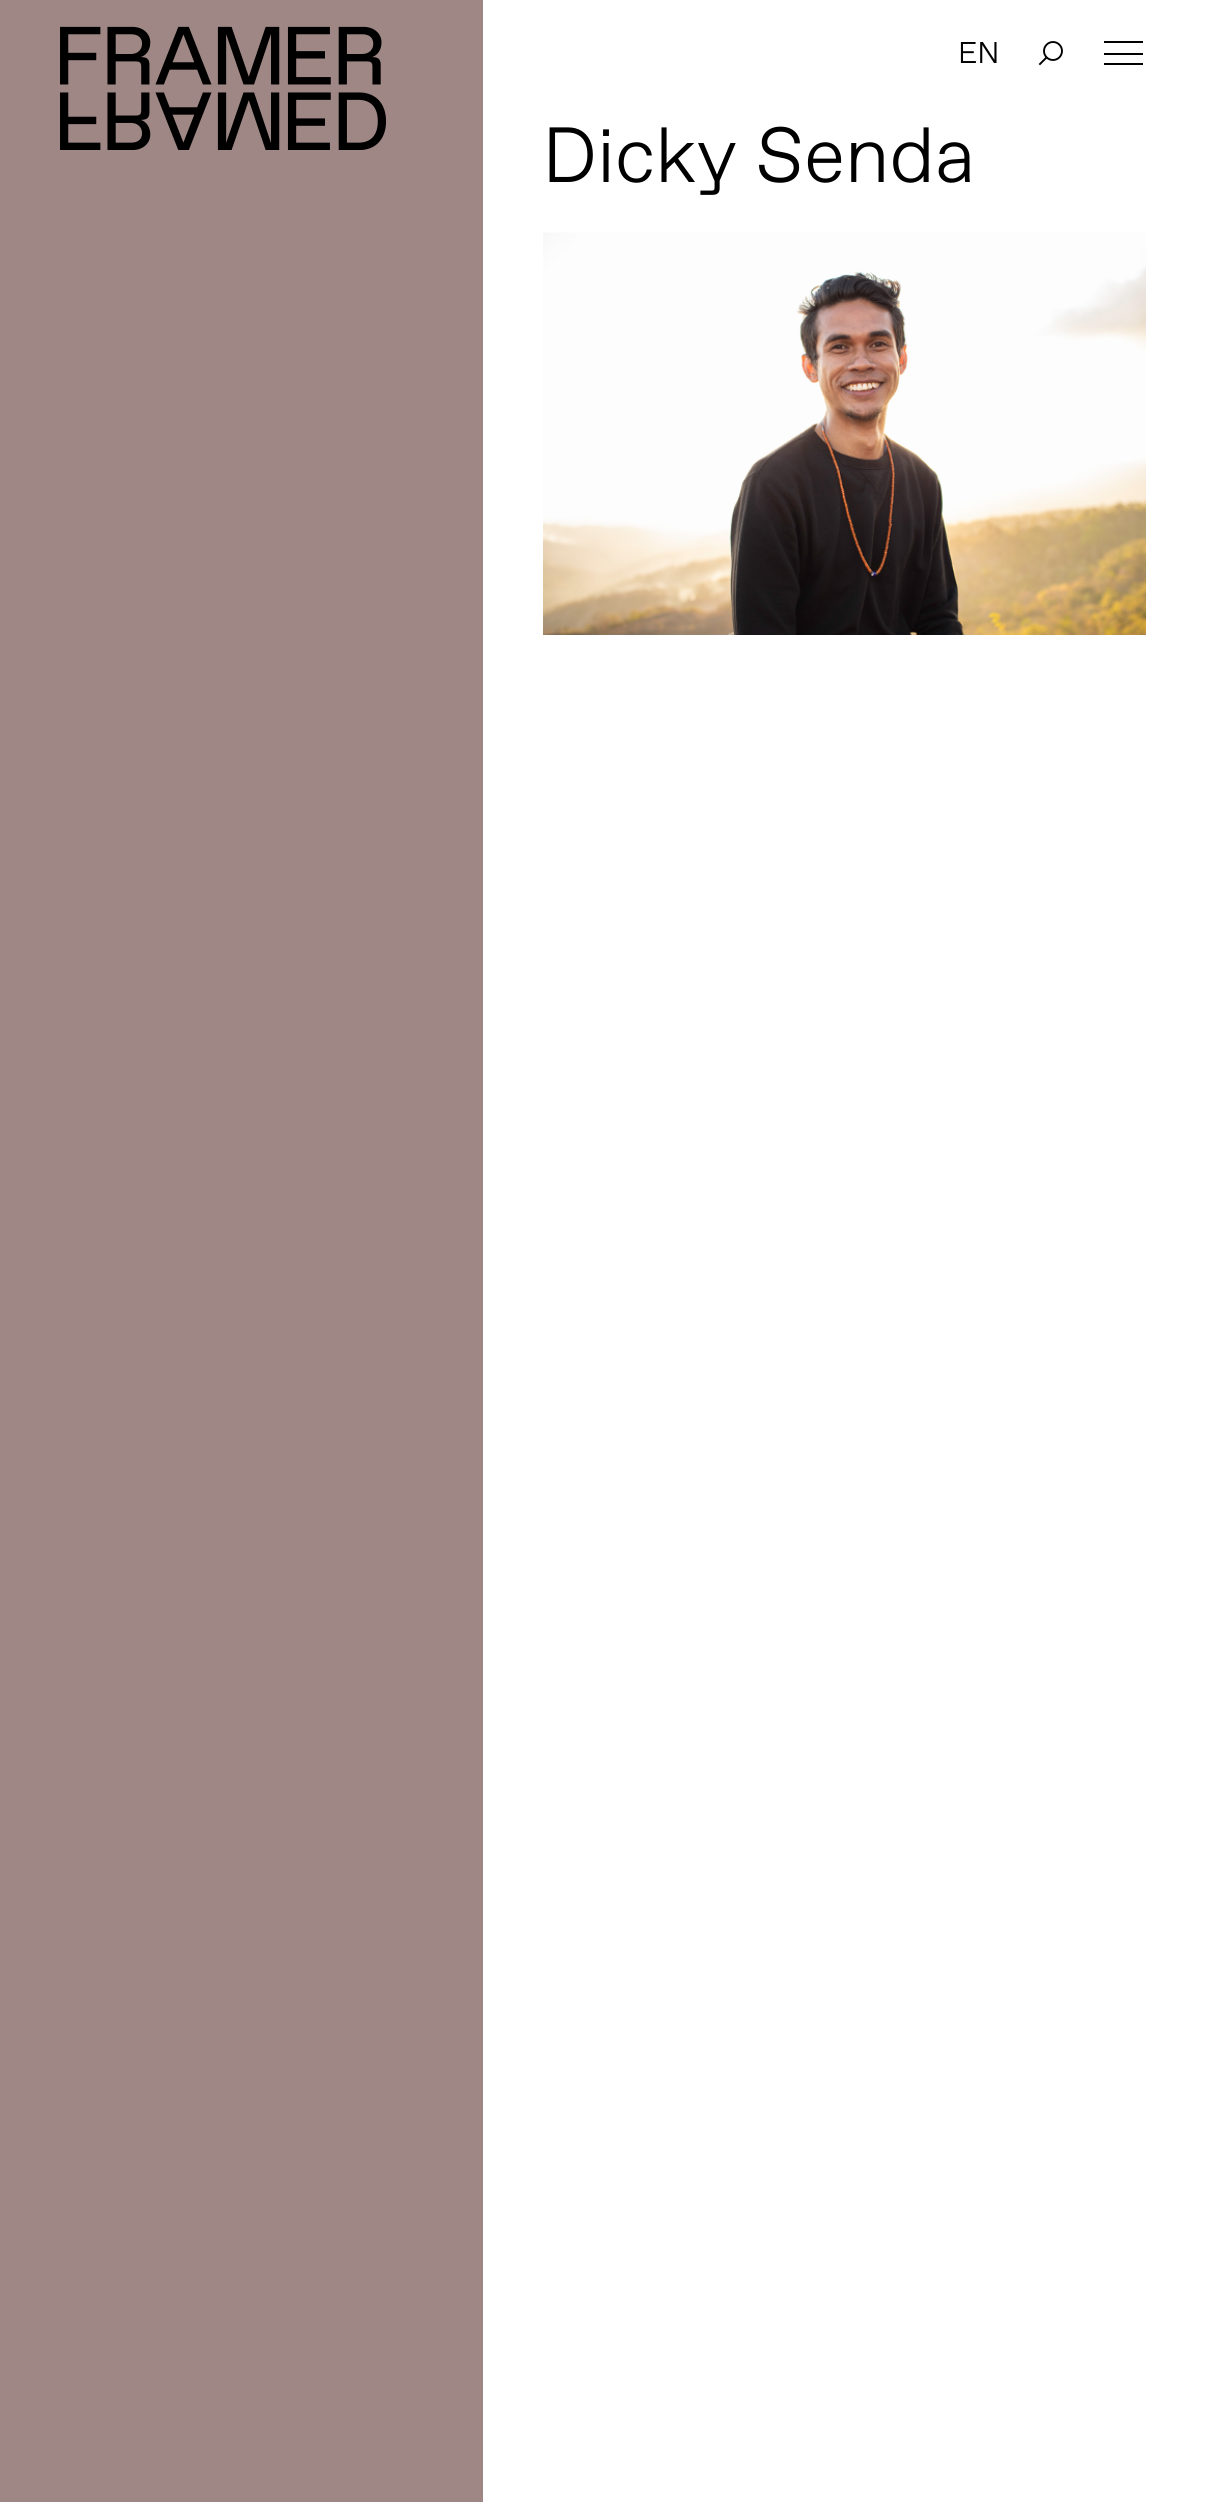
import math
import cairo

surface = cairo.ImageSurface(cairo.FORMAT_RGB24, 1205, 2502)
cr = cairo.Context(surface)
options = cairo.FontOptions()
options.set_hint_metrics(cairo.HINT_METRICS_OFF)
options.set_hint_style(cairo.HINT_STYLE_NONE)
cr.set_font_options(options)
cr.set_miter_limit(4)


def rgb(code):
    cr.set_source_rgb(*(v / 255 for v in bytes.fromhex(code[-6:])))


def image(path, x, y, w, h):
    cr.save()
    cr.set_source_surface(cairo.ImageSurface.create_from_png(path), x, y)
    cr.rectangle(x, y, w, h)
    cr.fill()
    cr.restore()


rgb("#9e8785")
cr.paint()
image("img/1.png", 60, 26, 326, 124)
rgb("#ffffff")
cr.rectangle(483, 0, 722, 2502)
cr.fill()
cr.new_path()
cr.move_to(1046, 58)
cr.line_to(1040, 64)
rgb("#000000")
cr.set_line_width(1.9)
cr.set_line_cap(cairo.LINE_CAP_SQUARE)
cr.stroke()
cr.arc(1053, 51, 9, 0, 2 * math.pi)
cr.set_line_cap(cairo.LINE_CAP_BUTT)
cr.stroke()
for x, y, w, h, color in [
    (1104, 41, 39, 2, "#000000"),
    (1104, 53, 39, 2, "#000000"),
    (1104, 63, 39, 2, "#000000"),
]:
    rgb(color)
    cr.rectangle(x, y, w, h)
    cr.fill()
image("img/2.png", 543, 232, 603, 403)
cr.select_font_face("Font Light")
cr.set_font_size(30)
cr.move_to(958, 63)
cr.show_text("EN")
cr.set_font_size(78)
cr.move_to(542, 182)
cr.show_text("Dicky Senda")
surface.write_to_png("page.png")
